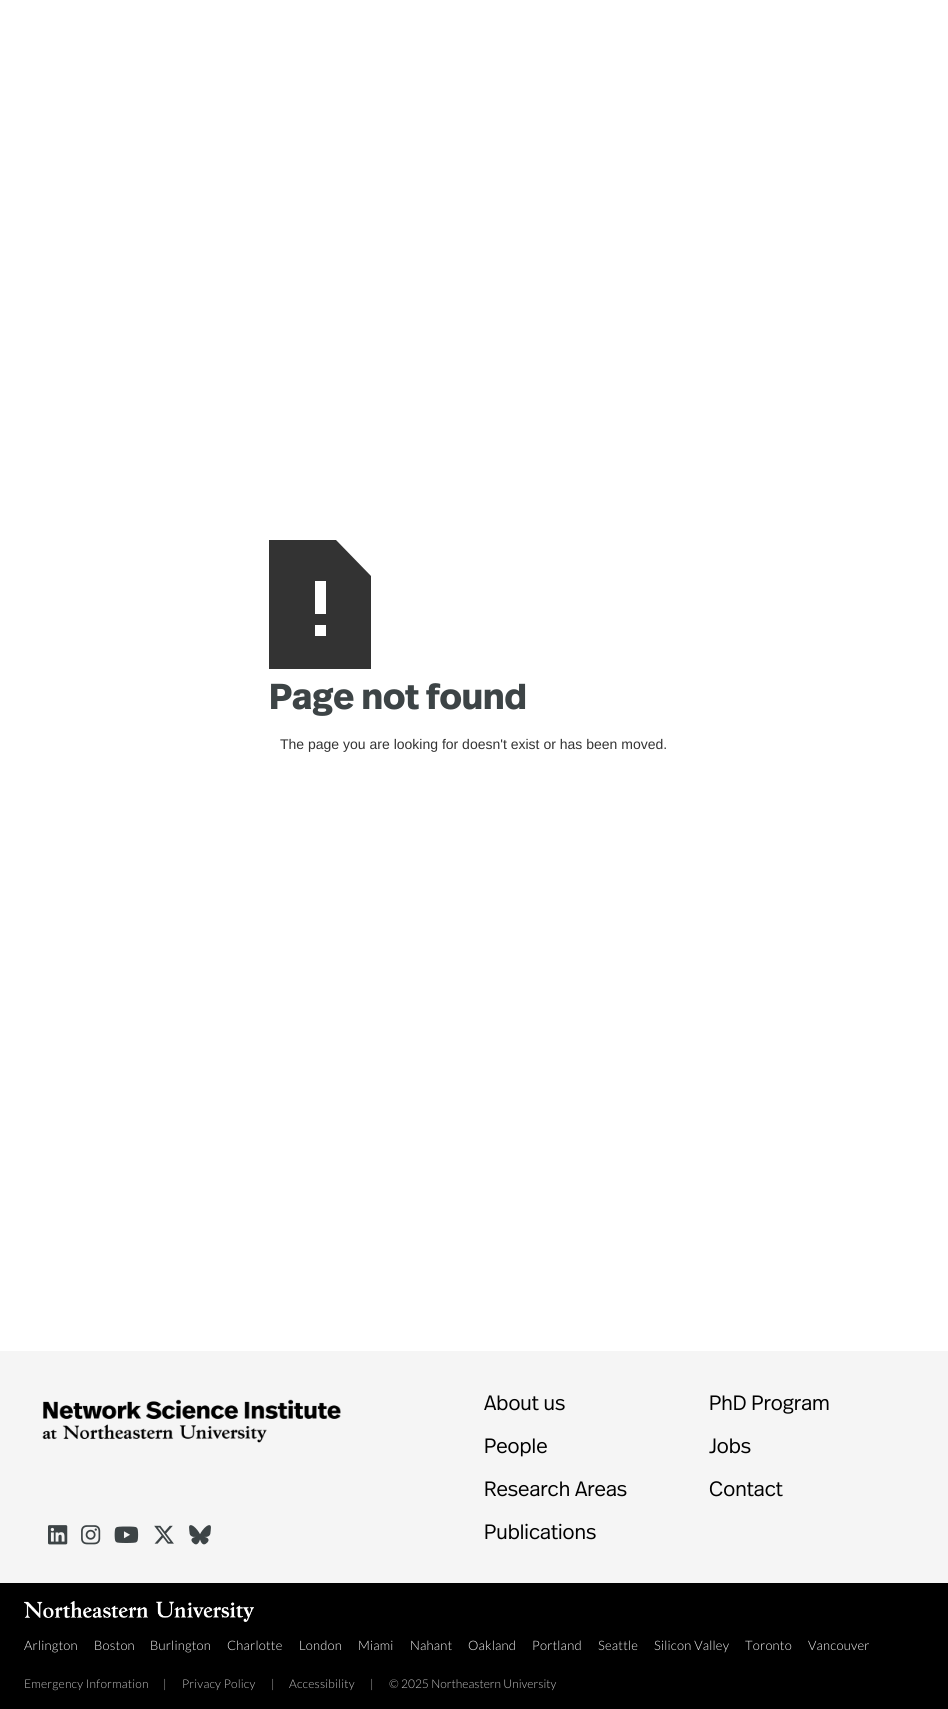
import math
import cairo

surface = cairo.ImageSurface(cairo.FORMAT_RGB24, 948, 1709)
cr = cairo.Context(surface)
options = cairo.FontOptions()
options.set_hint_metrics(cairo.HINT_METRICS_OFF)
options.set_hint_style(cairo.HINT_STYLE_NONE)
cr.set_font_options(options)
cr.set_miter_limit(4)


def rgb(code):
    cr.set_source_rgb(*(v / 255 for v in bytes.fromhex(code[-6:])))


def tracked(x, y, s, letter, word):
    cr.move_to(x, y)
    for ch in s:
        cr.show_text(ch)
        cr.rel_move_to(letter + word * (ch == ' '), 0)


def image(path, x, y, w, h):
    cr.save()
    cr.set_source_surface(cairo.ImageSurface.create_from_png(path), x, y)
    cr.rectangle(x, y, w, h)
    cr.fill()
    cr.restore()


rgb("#ffffff")
cr.paint()
rgb("#333333")
cr.set_fill_rule(cairo.FILL_RULE_EVEN_ODD)
cr.new_path()
cr.move_to(269, 540)
cr.line_to(336, 540)
cr.line_to(371, 576)
cr.line_to(371, 669)
cr.line_to(269, 669)
cr.close_path()
cr.move_to(315, 581)
cr.line_to(326, 581)
cr.line_to(326, 614)
cr.line_to(315, 614)
cr.close_path()
cr.move_to(315, 625)
cr.line_to(326, 625)
cr.line_to(326, 636)
cr.line_to(315, 636)
cr.close_path()
cr.fill()
rgb("#f5f5f5")
cr.rectangle(0, 1351, 948, 232)
cr.fill()
image("img/1.png", 42, 1399, 299, 44)
image("img/2.png", 48, 1525, 20, 20)
image("img/3.png", 81, 1525, 20, 20)
image("img/4.png", 114, 1526, 25, 17)
image("img/5.png", 154, 1525, 20, 19)
image("img/6.png", 189, 1525, 22, 20)
rgb("#000000")
cr.rectangle(0, 1583, 948, 126)
cr.fill()
image("img/7.png", 24, 1601, 230, 21)
cr.select_font_face("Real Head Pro", cairo.FONT_SLANT_NORMAL, cairo.FONT_WEIGHT_BOLD)
cr.set_font_size(36)
rgb("#3d4446")
cr.move_to(269, 709)
cr.show_text("Page not found")
cr.select_font_face("Liberation Sans")
cr.set_font_size(14)
rgb("#333333")
cr.move_to(280, 749)
cr.show_text("The page you are looking for doesn't exist or has been moved.")
cr.select_font_face("Real Head Pro Light")
cr.set_font_size(20.75)
rgb("#000000")
for x, y, s in [
    (484, 1410, "About us"),
    (484, 1453, "People"),
    (484, 1496, "Research Areas"),
    (484, 1539, "Publications"),
    (709, 1410, "PhD Program"),
    (709, 1453, "Jobs"),
    (709, 1496, "Contact"),
]:
    cr.move_to(x, y)
    cr.show_text(s)
cr.select_font_face("Lato Light")
cr.set_font_size(13)
rgb("#f5f5f5")
for x, y, s in [
    (24, 1650, "Arlington"),
    (94, 1650, "Boston"),
    (150, 1650, "Burlington"),
    (227, 1650, "Charlotte"),
    (299, 1650, "London"),
    (358, 1650, "Miami"),
    (410, 1650, "Nahant"),
    (468, 1650, "Oakland"),
    (532, 1650, "Portland"),
    (598, 1650, "Seattle"),
    (654, 1650, "Silicon Valley"),
    (745, 1650, "Toronto"),
    (808, 1650, "Vancouver"),
]:
    tracked(x, y, s, 0.2, 0)
cr.set_font_size(12)
rgb("#c4c4c4")
tracked(24, 1688, "Emergency Information", 0.2, 0)
cr.move_to(163, 1688)
cr.show_text("|")
tracked(182, 1688, "Privacy Policy", 0.2, 0)
cr.move_to(271, 1688)
cr.show_text("|")
tracked(289, 1688, "Accessibility", 0.2, 0)
cr.move_to(370, 1688)
cr.show_text("|")
cr.move_to(389, 1688)
cr.show_text("© 2025 Northeastern University")
surface.write_to_png("page.png")
